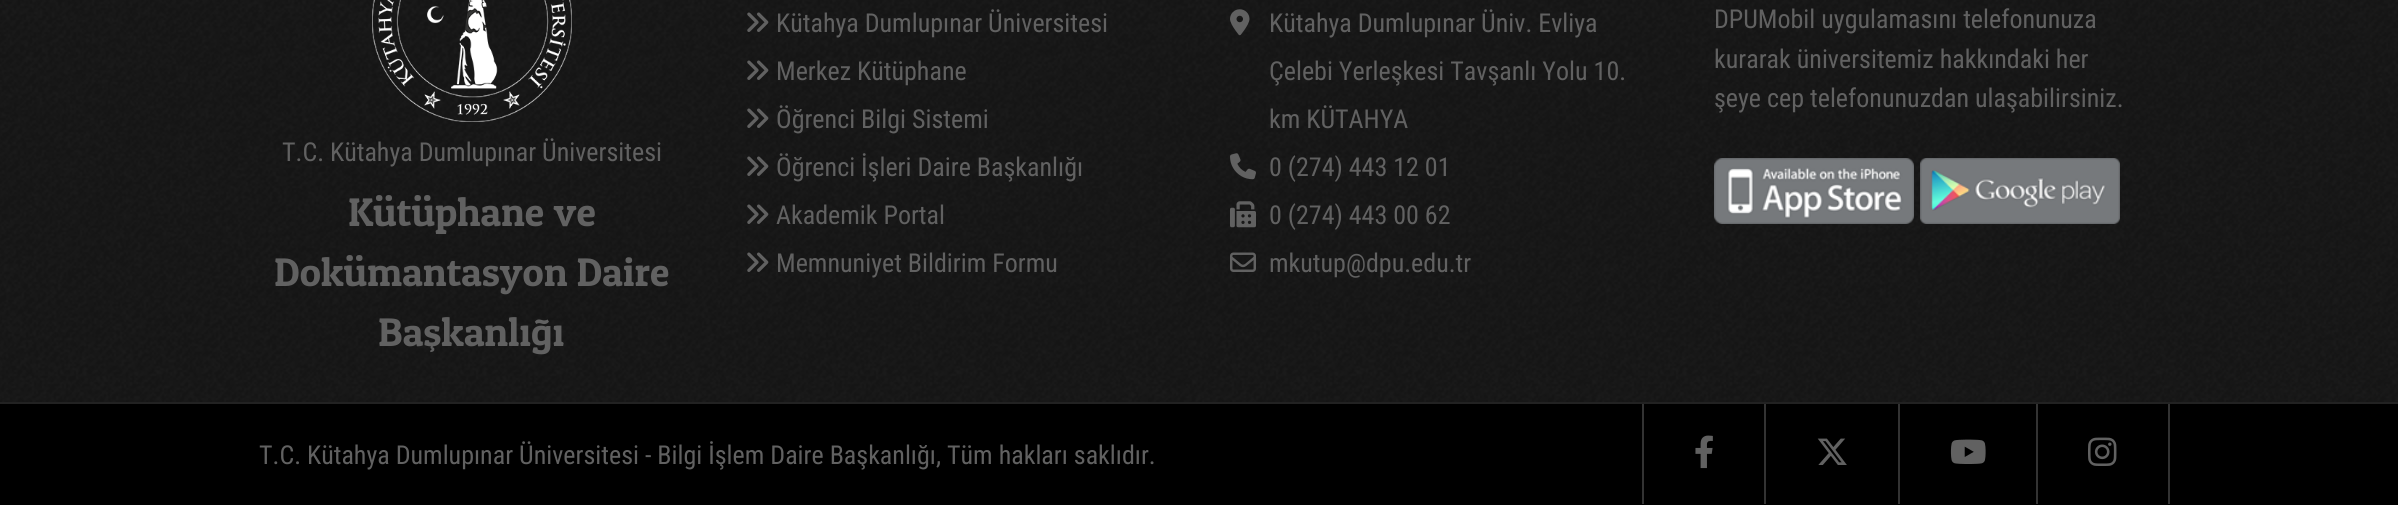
import math
import cairo

surface = cairo.ImageSurface(cairo.FORMAT_RGB24, 2398, 505)
cr = cairo.Context(surface)
options = cairo.FontOptions()
options.set_hint_metrics(cairo.HINT_METRICS_OFF)
options.set_hint_style(cairo.HINT_STYLE_NONE)
cr.set_font_options(options)
cr.set_miter_limit(4)


def rgb(code):
    cr.set_source_rgb(*(v / 255 for v in bytes.fromhex(code[-6:])))


def image(path, x, y, w, h):
    cr.save()
    cr.set_source_surface(cairo.ImageSurface.create_from_png(path), x, y)
    cr.rectangle(x, y, w, h)
    cr.fill()
    cr.restore()


rgb("#ffffff")
cr.paint()
image("img/1.png", 0, 0, 2398, 402)
image("img/2.png", 372, 0, 200, 122)
image("img/3.png", 747, 12, 22, 20)
image("img/4.png", 747, 60, 22, 20)
image("img/5.png", 747, 108, 22, 20)
image("img/6.png", 747, 156, 22, 20)
image("img/7.png", 747, 204, 22, 20)
image("img/8.png", 747, 252, 22, 20)
image("img/9.png", 1230, 9, 20, 27)
image("img/10.png", 1230, 153, 26, 27)
image("img/11.png", 1230, 201, 26, 27)
image("img/12.png", 1230, 252, 26, 20)
image("img/13.png", 1714, 158, 200, 66)
image("img/14.png", 1920, 158, 200, 66)
for x, y, w, h, color in [
    (0, 404, 2398, 101, "#000000"),
    (0, 402, 2398, 2, "#222222"),
    (1764, 404, 2, 100, "#333333"),
    (1642, 404, 2, 100, "#333333"),
]:
    rgb(color)
    cr.rectangle(x, y, w, h)
    cr.fill()
image("img/15.png", 1695, 435, 18, 34)
cr.rectangle(1898, 404, 2, 100)
cr.fill()
image("img/16.png", 1817, 438, 30, 27)
cr.rectangle(2036, 404, 2, 100)
cr.fill()
image("img/17.png", 1950, 439, 36, 25)
cr.rectangle(2168, 404, 2, 100)
cr.fill()
image("img/18.png", 2088, 437, 29, 29)
cr.select_font_face("Roboto Condensed")
cr.set_font_size(26)
rgb("#616161")
cr.move_to(282, 161)
cr.show_text("T.C. Kütahya Dumlupınar Üniversitesi")
cr.select_font_face("Patua One")
cr.set_font_size(40)
for x, y, s in [
    (348, 226, "Kütüphane ve"),
    (274, 286, "Dokümantasyon Daire"),
    (378, 346, "Başkanlığı"),
]:
    cr.move_to(x, y)
    cr.show_text(s)
cr.select_font_face("Roboto Condensed")
cr.set_font_size(26)
for x, y, s in [
    (776, 32, "Kütahya Dumlupınar Üniversitesi"),
    (776, 80, "Merkez Kütüphane"),
    (776, 128, "Öğrenci Bilgi Sistemi"),
    (776, 176, "Öğrenci İşleri Daire Başkanlığı"),
    (776, 224, "Akademik Portal"),
    (776, 272, "Memnuniyet Bildirim Formu"),
    (1269, 32, "Kütahya Dumlupınar Üniv. Evliya"),
    (1269, 80, "Çelebi Yerleşkesi Tavşanlı Yolu 10."),
    (1269, 128, "km KÜTAHYA"),
    (1269, 176, "0 (274) 443 12 01"),
    (1269, 224, "0 (274) 443 00 62"),
    (1269, 272, "mkutup@dpu.edu.tr"),
    (1714, 28, "DPUMobil uygulamasını telefonunuza"),
    (1714, 68, "kurarak üniversitemiz hakkındaki her"),
    (1714, 107, "şeye cep telefonunuzdan ulaşabilirsiniz."),
    (259, 464, "T.C. Kütahya Dumlupınar Üniversitesi - Bilgi İşlem Daire Başkanlığı, Tüm hakları saklıdır."),
]:
    cr.move_to(x, y)
    cr.show_text(s)
surface.write_to_png("page.png")
